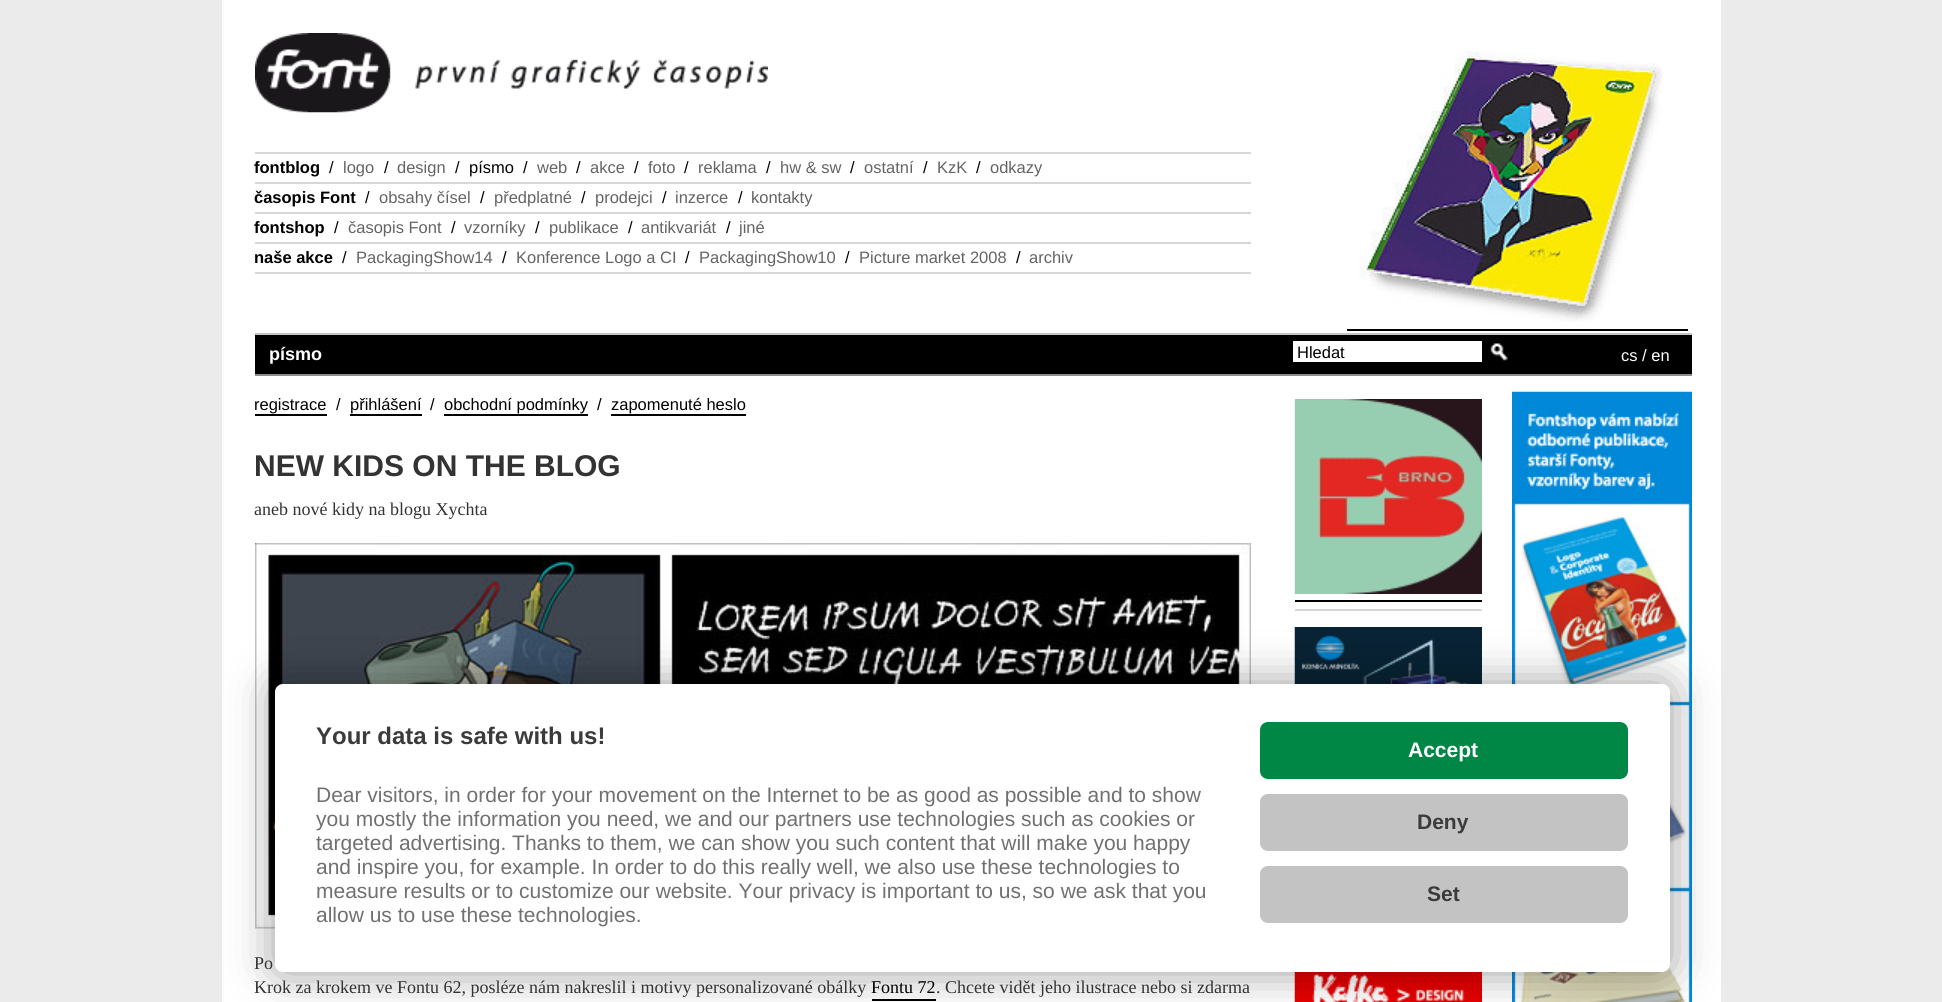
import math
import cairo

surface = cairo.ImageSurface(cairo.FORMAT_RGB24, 1942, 1002)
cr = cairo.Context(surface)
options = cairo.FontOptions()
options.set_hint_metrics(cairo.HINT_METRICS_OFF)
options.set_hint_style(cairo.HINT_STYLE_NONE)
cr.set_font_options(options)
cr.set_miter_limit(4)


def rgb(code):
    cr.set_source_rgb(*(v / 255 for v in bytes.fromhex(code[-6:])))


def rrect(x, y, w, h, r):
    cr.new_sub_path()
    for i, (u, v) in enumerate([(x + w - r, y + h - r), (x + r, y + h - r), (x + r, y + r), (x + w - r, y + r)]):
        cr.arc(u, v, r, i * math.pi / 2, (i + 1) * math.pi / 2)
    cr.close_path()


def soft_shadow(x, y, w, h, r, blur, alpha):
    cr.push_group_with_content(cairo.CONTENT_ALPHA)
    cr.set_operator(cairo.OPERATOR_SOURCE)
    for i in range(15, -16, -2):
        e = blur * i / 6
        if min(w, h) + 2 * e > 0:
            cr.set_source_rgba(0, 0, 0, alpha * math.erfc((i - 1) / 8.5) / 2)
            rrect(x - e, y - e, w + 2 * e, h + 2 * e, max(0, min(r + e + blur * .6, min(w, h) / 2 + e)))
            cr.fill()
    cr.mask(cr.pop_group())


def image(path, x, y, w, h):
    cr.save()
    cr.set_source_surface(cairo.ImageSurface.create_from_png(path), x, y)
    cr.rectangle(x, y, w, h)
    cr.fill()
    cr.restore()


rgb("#ebebeb")
cr.paint()
rgb("#ffffff")
cr.rectangle(222, 0, 1499, 1002)
cr.fill()
image("img/1.png", 255, 33, 513, 80)
image("img/2.png", 1359, 51, 304, 271)
for x, y, w, h, color in [
    (1347, 329, 341, 2, "#000000"),
    (255, 152, 996, 2, "#d7d7d7"),
    (255, 182, 996, 2, "#d7d7d7"),
    (255, 212, 996, 2, "#d7d7d7"),
    (255, 242, 996, 2, "#d7d7d7"),
    (255, 272, 996, 2, "#d7d7d7"),
    (255, 335, 1437, 39, "#000000"),
    (255, 333, 1437, 2, "#c6c5c6"),
    (255, 374, 1437, 2, "#8c8b8d"),
    (1293, 341, 189, 21, "#ffffff"),
]:
    rgb(color)
    cr.rectangle(x, y, w, h)
    cr.fill()
image("img/3.png", 1490, 343, 18, 18)
for x, y, w, h, color in [
    (255, 414, 72, 2, "#000000"),
    (350, 414, 72, 2, "#000000"),
    (444, 414, 144, 2, "#000000"),
    (611, 414, 135, 2, "#000000"),
]:
    rgb(color)
    cr.rectangle(x, y, w, h)
    cr.fill()
image("img/4.png", 255, 543, 996, 386)
cr.rectangle(872, 999, 64, 2)
cr.fill()
image("img/5.png", 1294, 399, 188, 195)
cr.rectangle(1295, 600, 187, 2)
cr.fill()
rgb("#d7d7d7")
cr.rectangle(1295, 609, 187, 2)
cr.fill()
image("img/6.png", 1294, 627, 188, 57)
image("img/7.png", 1294, 972, 188, 30)
image("img/8.png", 1512, 391, 180, 611)
rgb("#000000")
soft_shadow(275, 684, 1395, 288, 8, 22.5, 0.4)
rgb("#ffffff")
rrect(275, 684, 1395, 288, 8)
cr.fill()
rgb("#008745")
rrect(1260, 722, 368, 57, 8)
cr.fill()
rgb("#c3c3c3")
rrect(1260, 794, 368, 57, 8)
cr.fill()
rrect(1260, 866, 368, 57, 8)
cr.fill()
cr.select_font_face("Liberation Sans", cairo.FONT_SLANT_NORMAL, cairo.FONT_WEIGHT_BOLD)
cr.set_font_size(16.5)
rgb("#000000")
cr.move_to(254, 173)
cr.show_text("fontblog")
cr.select_font_face("Liberation Sans")
cr.move_to(329, 173)
cr.show_text("/")
rgb("#646464")
cr.move_to(343, 173)
cr.show_text("logo")
rgb("#000000")
cr.move_to(384, 173)
cr.show_text("/")
rgb("#646464")
cr.move_to(397, 173)
cr.show_text("design")
rgb("#000000")
for x, y, s in [
    (455, 173, "/"),
    (469, 173, "písmo"),
    (523, 173, "/"),
]:
    cr.move_to(x, y)
    cr.show_text(s)
rgb("#646464")
cr.move_to(537, 173)
cr.show_text("web")
rgb("#000000")
cr.move_to(576, 173)
cr.show_text("/")
rgb("#646464")
cr.move_to(590, 173)
cr.show_text("akce")
rgb("#000000")
cr.move_to(634, 173)
cr.show_text("/")
rgb("#646464")
cr.move_to(648, 173)
cr.show_text("foto")
rgb("#000000")
cr.move_to(684, 173)
cr.show_text("/")
rgb("#646464")
cr.move_to(698, 173)
cr.show_text("reklama")
rgb("#000000")
cr.move_to(766, 173)
cr.show_text("/")
rgb("#646464")
cr.move_to(780, 173)
cr.show_text("hw & sw")
rgb("#000000")
cr.move_to(850, 173)
cr.show_text("/")
rgb("#646464")
cr.move_to(864, 173)
cr.show_text("ostatní")
rgb("#000000")
cr.move_to(923, 173)
cr.show_text("/")
rgb("#646464")
cr.move_to(937, 173)
cr.show_text("KzK")
rgb("#000000")
cr.move_to(976, 173)
cr.show_text("/")
rgb("#646464")
cr.move_to(990, 173)
cr.show_text("odkazy")
cr.select_font_face("Liberation Sans", cairo.FONT_SLANT_NORMAL, cairo.FONT_WEIGHT_BOLD)
rgb("#000000")
cr.move_to(254, 203)
cr.show_text("časopis Font")
cr.select_font_face("Liberation Sans")
cr.move_to(365, 203)
cr.show_text("/")
rgb("#646464")
cr.move_to(379, 203)
cr.show_text("obsahy čísel")
rgb("#000000")
cr.move_to(480, 203)
cr.show_text("/")
rgb("#646464")
cr.move_to(494, 203)
cr.show_text("předplatné")
rgb("#000000")
cr.move_to(581, 203)
cr.show_text("/")
rgb("#646464")
cr.move_to(595, 203)
cr.show_text("prodejci")
rgb("#000000")
cr.move_to(662, 203)
cr.show_text("/")
rgb("#646464")
cr.move_to(675, 203)
cr.show_text("inzerce")
rgb("#000000")
cr.move_to(738, 203)
cr.show_text("/")
rgb("#646464")
cr.move_to(751, 203)
cr.show_text("kontakty")
cr.select_font_face("Liberation Sans", cairo.FONT_SLANT_NORMAL, cairo.FONT_WEIGHT_BOLD)
rgb("#000000")
cr.move_to(254, 233)
cr.show_text("fontshop")
cr.select_font_face("Liberation Sans")
cr.move_to(334, 233)
cr.show_text("/")
rgb("#646464")
cr.move_to(348, 233)
cr.show_text("časopis Font")
rgb("#000000")
cr.move_to(451, 233)
cr.show_text("/")
rgb("#646464")
cr.move_to(464, 233)
cr.show_text("vzorníky")
rgb("#000000")
cr.move_to(535, 233)
cr.show_text("/")
rgb("#646464")
cr.move_to(549, 233)
cr.show_text("publikace")
rgb("#000000")
cr.move_to(628, 233)
cr.show_text("/")
rgb("#646464")
cr.move_to(641, 233)
cr.show_text("antikvariát")
rgb("#000000")
cr.move_to(726, 233)
cr.show_text("/")
rgb("#646464")
cr.move_to(739, 233)
cr.show_text("jiné")
cr.select_font_face("Liberation Sans", cairo.FONT_SLANT_NORMAL, cairo.FONT_WEIGHT_BOLD)
rgb("#000000")
cr.move_to(254, 263)
cr.show_text("naše akce")
cr.select_font_face("Liberation Sans")
cr.move_to(342, 263)
cr.show_text("/")
rgb("#646464")
cr.move_to(356, 263)
cr.show_text("PackagingShow14")
rgb("#000000")
cr.move_to(502, 263)
cr.show_text("/")
rgb("#646464")
cr.move_to(516, 263)
cr.show_text("Konference Logo a CI")
rgb("#000000")
cr.move_to(685, 263)
cr.show_text("/")
rgb("#646464")
cr.move_to(699, 263)
cr.show_text("PackagingShow10")
rgb("#000000")
cr.move_to(845, 263)
cr.show_text("/")
rgb("#646464")
cr.move_to(859, 263)
cr.show_text("Picture market 2008")
rgb("#000000")
cr.move_to(1016, 263)
cr.show_text("/")
rgb("#646464")
cr.move_to(1029, 263)
cr.show_text("archiv")
cr.select_font_face("Liberation Sans", cairo.FONT_SLANT_NORMAL, cairo.FONT_WEIGHT_BOLD)
cr.set_font_size(18)
rgb("#ffffff")
cr.move_to(269, 360)
cr.show_text("písmo")
cr.select_font_face("Liberation Sans")
cr.set_font_size(16.5)
rgb("#000000")
cr.move_to(1297, 358)
cr.show_text("Hledat")
rgb("#ffffff")
cr.move_to(1621, 361)
cr.show_text("cs / en")
rgb("#000000")
for x, y, s in [
    (254, 410, "registrace"),
    (336, 410, "/"),
    (350, 410, "přihlášení"),
    (430, 410, "/"),
    (444, 410, "obchodní podmínky"),
    (597, 410, "/"),
    (611, 410, "zapomenuté heslo"),
]:
    cr.move_to(x, y)
    cr.show_text(s)
cr.select_font_face("Liberation Sans", cairo.FONT_SLANT_NORMAL, cairo.FONT_WEIGHT_BOLD)
cr.set_font_size(30)
rgb("#333333")
cr.move_to(254, 476)
cr.show_text("NEW KIDS ON THE BLOG")
cr.select_font_face("Liberation Serif")
cr.set_font_size(18)
for x, y, s in [
    (254, 515, "aneb nové kidy na blogu Xychta"),
    (254, 969, "Po"),
    (254, 993, "Krok za krokem ve Fontu 62, posléze nám nakreslil i motivy personalizované obálky"),
]:
    cr.move_to(x, y)
    cr.show_text(s)
rgb("#000000")
cr.move_to(871, 993)
cr.show_text("Fontu 72")
rgb("#333333")
cr.move_to(936, 993)
cr.show_text(". Chcete vidět jeho ilustrace nebo si zdarma")
cr.select_font_face("Liberation Sans", cairo.FONT_SLANT_NORMAL, cairo.FONT_WEIGHT_BOLD)
cr.set_font_size(24)
rgb("#3b3b3b")
cr.move_to(316, 744)
cr.show_text("Your data is safe with us!")
cr.select_font_face("Liberation Sans")
cr.set_font_size(21)
rgb("#707070")
for x, y, s in [
    (316, 802, "Dear visitors, in order for your movement on the Internet to be as good as possible and to show"),
    (316, 826, "you mostly the information you need, we and our partners use technologies such as cookies or"),
    (316, 850, "targeted advertising. Thanks to them, we can show you such content that will make you happy"),
    (316, 874, "and inspire you, for example. In order to do this really well, we also use these technologies to"),
    (316, 898, "measure results or to customize our website. Your privacy is important to us, so we ask that you"),
    (316, 922, "allow us to use these technologies."),
]:
    cr.move_to(x, y)
    cr.show_text(s)
cr.select_font_face("Liberation Sans", cairo.FONT_SLANT_NORMAL, cairo.FONT_WEIGHT_BOLD)
rgb("#ffffff")
cr.move_to(1408, 757)
cr.show_text("Accept")
rgb("#3b3b3b")
cr.move_to(1417, 829)
cr.show_text("Deny")
cr.move_to(1427, 901)
cr.show_text("Set")
surface.write_to_png("page.png")
